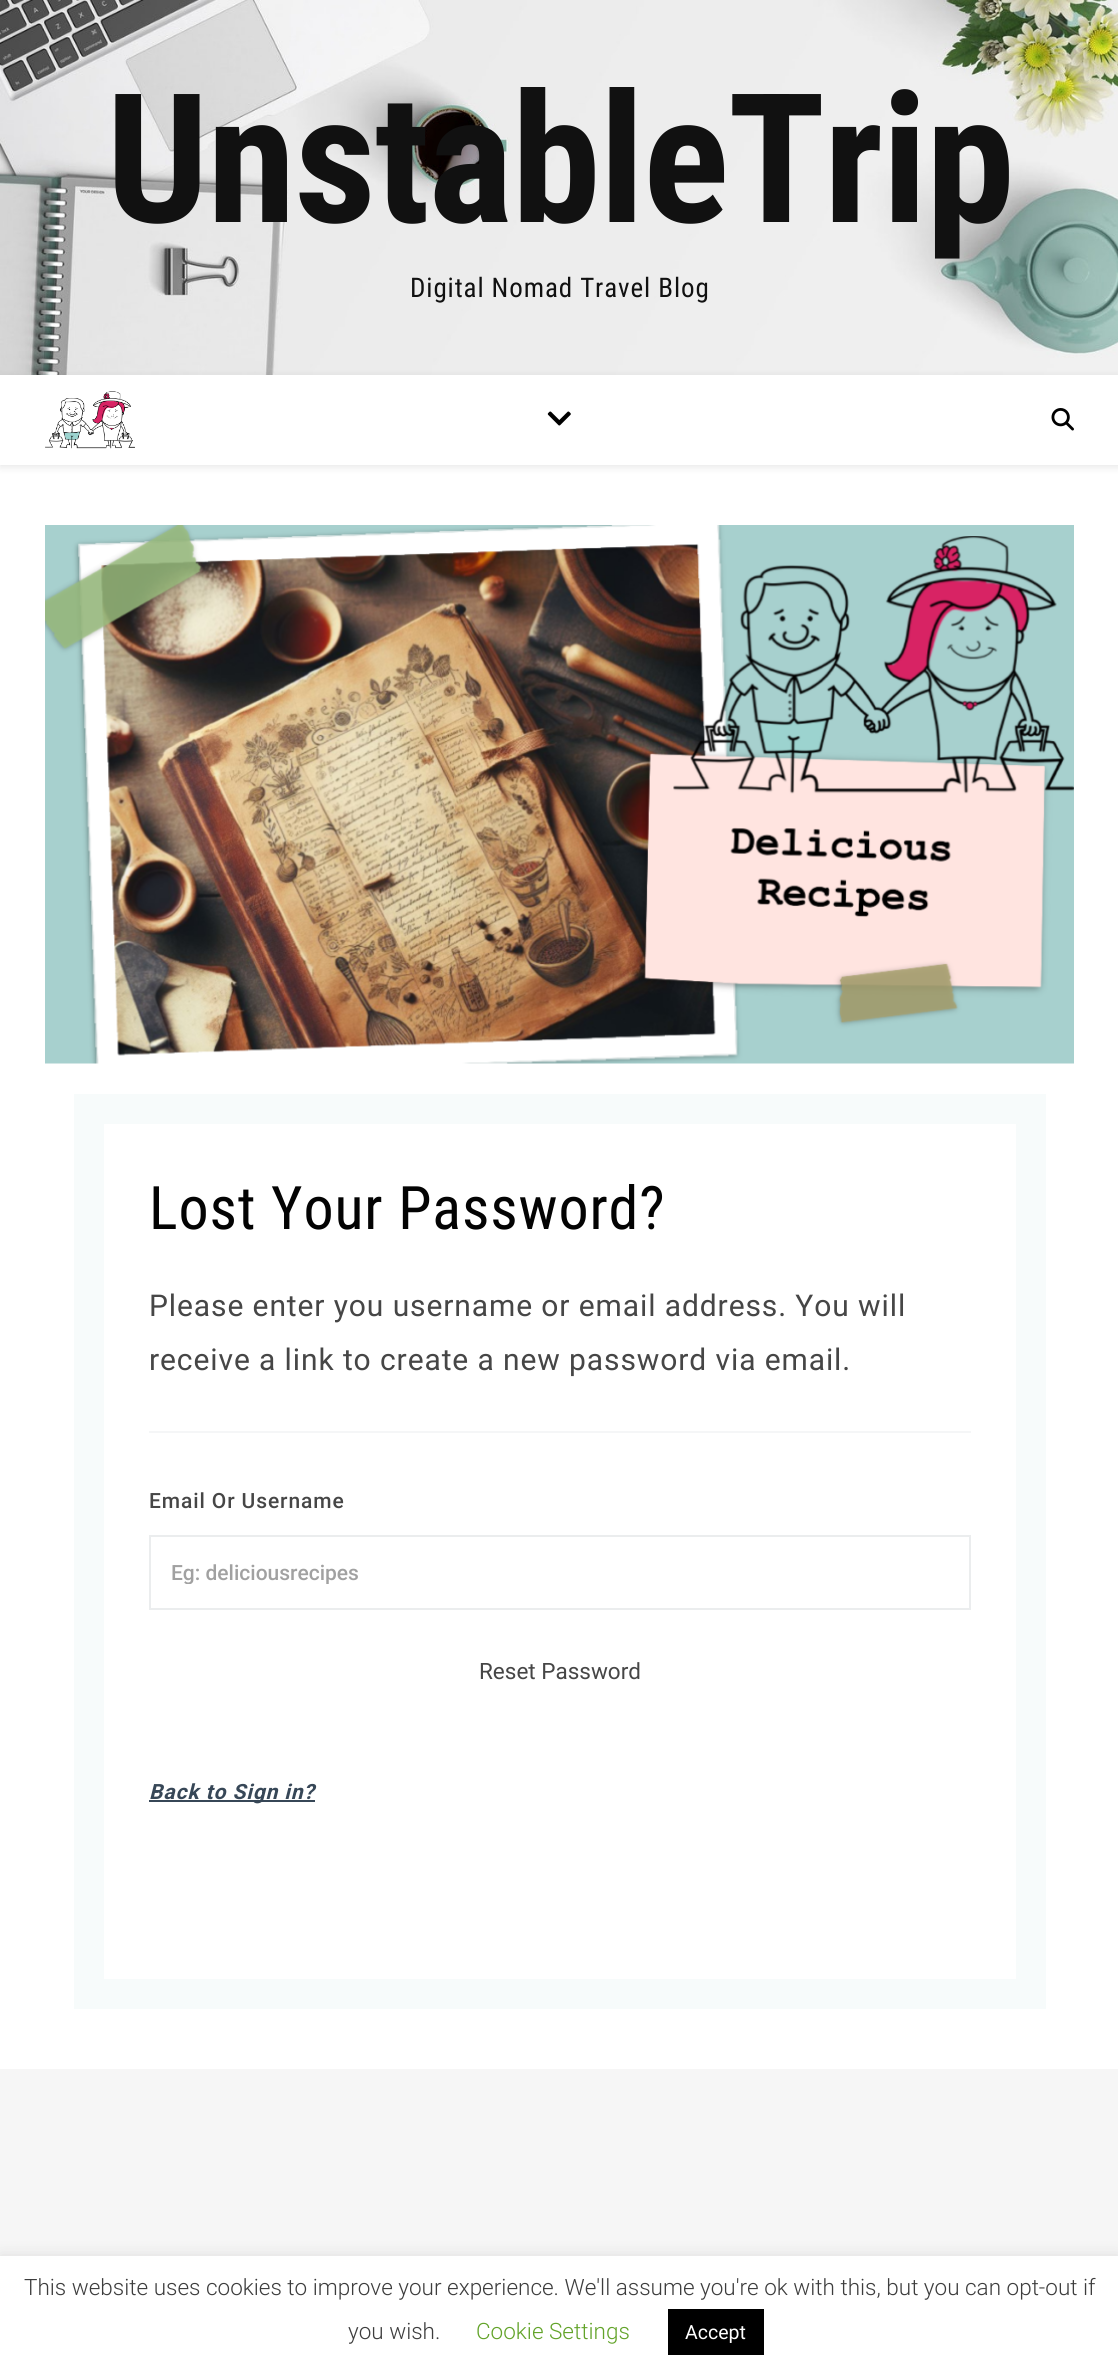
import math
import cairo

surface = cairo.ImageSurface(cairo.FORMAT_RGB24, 1118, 2380)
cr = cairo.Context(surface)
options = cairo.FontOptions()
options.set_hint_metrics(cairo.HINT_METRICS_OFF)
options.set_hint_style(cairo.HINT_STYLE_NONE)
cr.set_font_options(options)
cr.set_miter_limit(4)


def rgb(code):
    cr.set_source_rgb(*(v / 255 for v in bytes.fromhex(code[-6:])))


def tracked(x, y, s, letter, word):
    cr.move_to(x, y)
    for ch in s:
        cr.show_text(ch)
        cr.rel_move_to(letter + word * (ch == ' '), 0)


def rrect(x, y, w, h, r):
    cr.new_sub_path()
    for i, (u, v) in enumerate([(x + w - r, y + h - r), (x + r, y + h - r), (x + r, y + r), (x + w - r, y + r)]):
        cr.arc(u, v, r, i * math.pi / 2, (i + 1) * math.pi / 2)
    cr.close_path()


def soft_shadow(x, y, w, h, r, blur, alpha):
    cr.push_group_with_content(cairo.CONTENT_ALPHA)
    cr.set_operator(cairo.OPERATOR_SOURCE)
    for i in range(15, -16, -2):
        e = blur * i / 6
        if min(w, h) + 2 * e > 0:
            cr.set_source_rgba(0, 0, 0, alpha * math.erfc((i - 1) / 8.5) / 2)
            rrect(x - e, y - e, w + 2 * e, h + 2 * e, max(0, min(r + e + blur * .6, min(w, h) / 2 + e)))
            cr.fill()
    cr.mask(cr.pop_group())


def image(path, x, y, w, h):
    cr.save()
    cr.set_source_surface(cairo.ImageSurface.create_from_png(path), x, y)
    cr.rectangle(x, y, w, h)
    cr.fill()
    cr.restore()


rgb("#ffffff")
cr.paint()
image("img/1.png", 0, 0, 1118, 375)
cr.save()
cr.set_fill_rule(cairo.FILL_RULE_EVEN_ODD)
cr.new_path()
cr.move_to(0, 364)
cr.line_to(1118, 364)
cr.line_to(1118, 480)
cr.line_to(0, 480)
cr.close_path()
cr.move_to(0, 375)
cr.line_to(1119, 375)
cr.line_to(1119, 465)
cr.line_to(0, 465)
cr.close_path()
cr.clip()
rgb("#000000")
soft_shadow(0, 377, 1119, 90, 0, 4, 0.1)
cr.restore()
image("img/2.png", 45, 391, 90, 58)
image("img/3.png", 547, 411, 24, 15)
image("img/4.png", 1051, 408, 23, 23)
image("img/5.png", 45, 525, 1029, 539)
for x, y, w, h, color in [
    (74, 1094, 972, 915, "#f7fbfb"),
    (104, 1124, 912, 855, "#ffffff"),
    (149, 1431, 822, 2, "#f5f6f7"),
]:
    rgb(color)
    cr.rectangle(x, y, w, h)
    cr.fill()
cr.rectangle(150, 1536, 820, 73)
rgb("#ebedee")
cr.stroke()
rgb("#374757")
cr.rectangle(149, 1800, 166, 2)
cr.fill()
rgb("#f6f6f6")
cr.rectangle(0, 2069, 1118, 187)
cr.fill()
rgb("#acabab")
soft_shadow(0, 2255, 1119, 124, 0, 7.5, 0.3)
rgb("#ffffff")
cr.rectangle(0, 2256, 1118, 124)
cr.fill()
rgb("#000000")
cr.rectangle(668, 2309, 96, 46)
cr.fill()
cr.select_font_face("Roboto Condensed", cairo.FONT_SLANT_NORMAL, cairo.FONT_WEIGHT_BOLD)
cr.set_font_size(180)
rgb("#111111")
tracked(106, 222, "UnstableTrip", -1.5, 0)
cr.select_font_face("Roboto Condensed")
cr.set_font_size(27)
tracked(410, 297, "Digital Nomad Travel Blog", 0.9, 0)
cr.set_font_size(60)
rgb("#030303")
tracked(149, 1229, "Lost Your Password?", 0.9, 0)
cr.select_font_face("Roboto")
cr.set_font_size(30)
rgb("#464646")
tracked(149, 1316, "Please enter you username or email address. You will", 0.9, 0)
tracked(149, 1370, "receive a link to create a new password via email.", 0.9, 0)
cr.select_font_face("Roboto Medium")
cr.set_font_size(21)
tracked(149, 1508, "Email Or Username", 0.9, 0)
cr.save()
cr.rectangle(171, 1560, 777, 24)
cr.clip()
rgb("#a1a1a1")
cr.move_to(171, 1580)
cr.show_text("Eg: deliciousrecipes")
cr.restore()
cr.select_font_face("Roboto")
cr.set_font_size(22.5)
cr.move_to(479, 1679)
cr.show_text("Reset Password")
cr.select_font_face("Roboto", cairo.FONT_SLANT_ITALIC, cairo.FONT_WEIGHT_BOLD)
cr.set_font_size(21)
rgb("#374757")
tracked(149, 1799, "Back to Sign in?", 0.9, 0)
cr.select_font_face("Roboto Light")
cr.set_font_size(22.5)
rgb("#3d3d3d")
cr.move_to(24, 2295)
cr.show_text("This website uses cookies to improve your experience. We'll assume you're ok with this, but you can opt-out if")
cr.move_to(348, 2339)
cr.show_text("you wish.")
rgb("#62a329")
cr.move_to(476, 2339)
cr.show_text("Cookie Settings")
cr.select_font_face("Roboto")
cr.set_font_size(19.5)
rgb("#ffffff")
cr.move_to(685, 2339)
cr.show_text("Accept")
surface.write_to_png("page.png")
